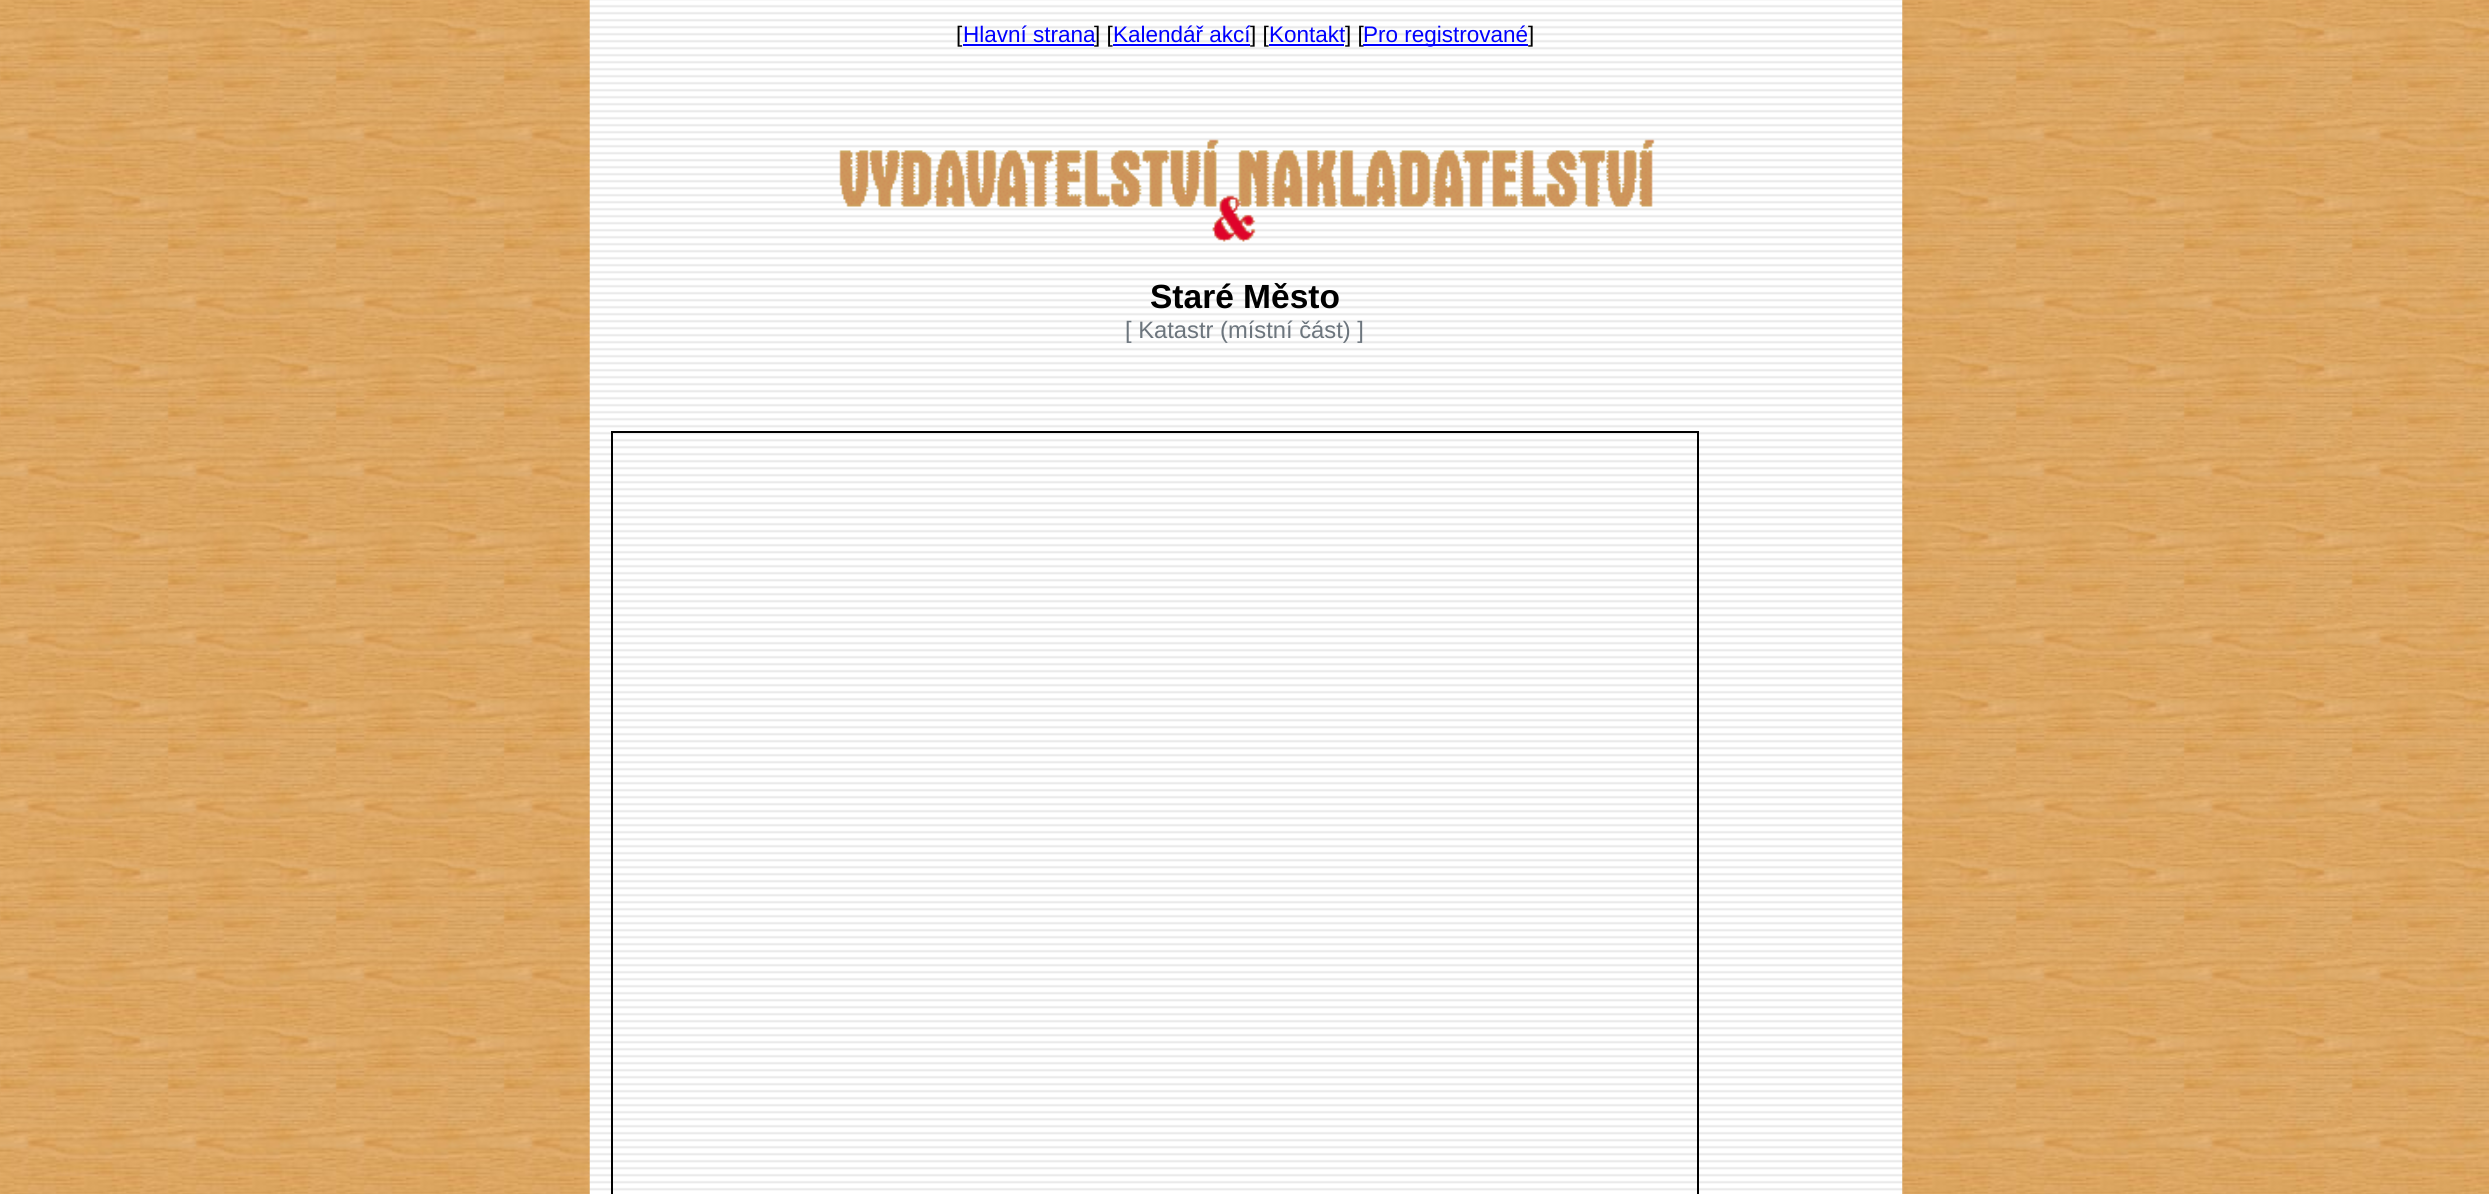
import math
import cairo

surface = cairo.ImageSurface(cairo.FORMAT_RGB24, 2489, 1194)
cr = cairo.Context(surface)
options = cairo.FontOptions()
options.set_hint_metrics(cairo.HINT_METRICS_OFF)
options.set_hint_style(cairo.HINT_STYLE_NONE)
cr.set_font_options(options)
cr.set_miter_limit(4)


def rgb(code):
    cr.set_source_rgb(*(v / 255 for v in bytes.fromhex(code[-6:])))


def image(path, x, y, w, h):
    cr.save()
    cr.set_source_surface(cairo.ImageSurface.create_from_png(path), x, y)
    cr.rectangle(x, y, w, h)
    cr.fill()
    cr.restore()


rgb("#ffffff")
cr.paint()
image("img/1.png", 0, 0, 2489, 1194)
image("img/2.png", 589, 0, 1314, 1194)
for x, y, w, h, color in [
    (963, 44, 131, 2, "#0000ff"),
    (1113, 44, 137, 2, "#0000ff"),
    (1269, 44, 75, 2, "#0000ff"),
]:
    rgb(color)
    cr.rectangle(x, y, w, h)
    cr.fill()
image("img/3.png", 839, 139, 816, 103)
cr.rectangle(612, 432, 1086, 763)
rgb("#000000")
cr.stroke()
cr.select_font_face("Liberation Sans")
cr.set_font_size(22.5)
cr.move_to(956, 42)
cr.show_text("[")
rgb("#0000ff")
cr.move_to(963, 42)
cr.show_text("Hlavní strana")
rgb("#000000")
cr.move_to(1094, 42)
cr.show_text("] [")
rgb("#0000ff")
cr.move_to(1113, 42)
cr.show_text("Kalendář akcí")
rgb("#000000")
cr.move_to(1250, 42)
cr.show_text("] [")
rgb("#0000ff")
cr.move_to(1269, 42)
cr.show_text("Kontakt")
rgb("#000000")
cr.move_to(1345, 42)
cr.show_text("] [")
rgb("#0000ff")
cr.rectangle(1363, 44, 165, 2)
cr.fill()
cr.move_to(1363, 42)
cr.show_text("Pro registrované")
rgb("#000000")
cr.move_to(1528, 42)
cr.show_text("]")
cr.select_font_face("Liberation Sans", cairo.FONT_SLANT_NORMAL, cairo.FONT_WEIGHT_BOLD)
cr.set_font_size(33.5)
cr.move_to(1150, 308)
cr.show_text("Staré Město")
cr.select_font_face("Liberation Sans")
cr.set_font_size(23.75)
rgb("#6c757d")
cr.move_to(1125, 338)
cr.show_text("[ Katastr (místní část) ]")
surface.write_to_png("page.png")
